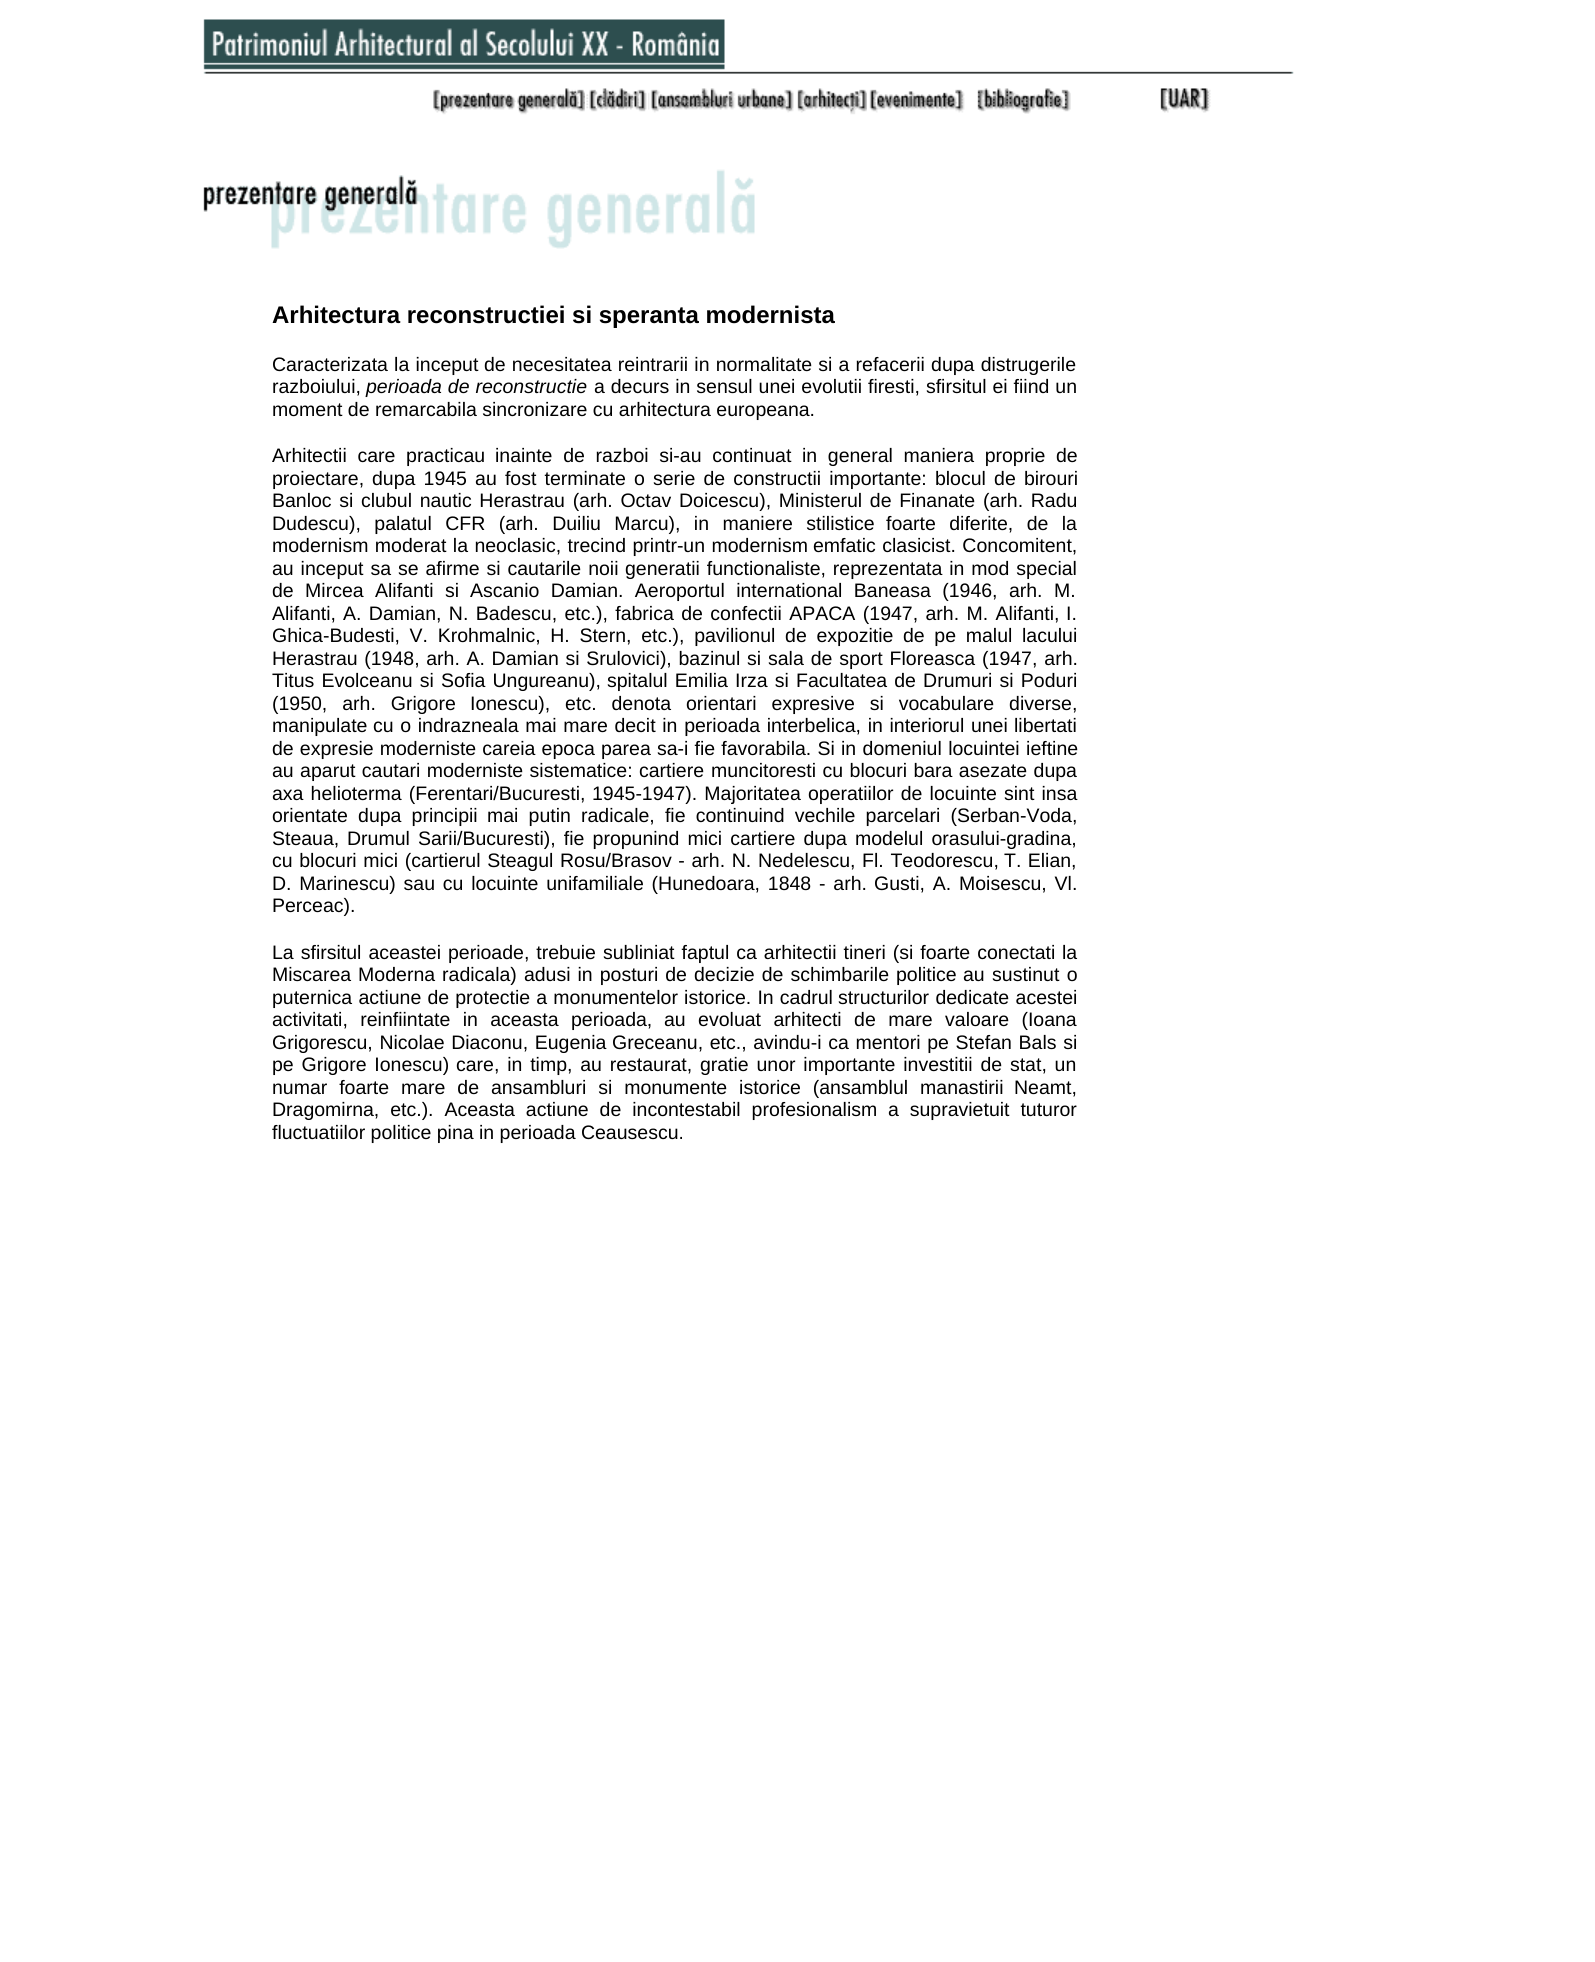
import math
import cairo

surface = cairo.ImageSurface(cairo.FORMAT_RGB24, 1595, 1962)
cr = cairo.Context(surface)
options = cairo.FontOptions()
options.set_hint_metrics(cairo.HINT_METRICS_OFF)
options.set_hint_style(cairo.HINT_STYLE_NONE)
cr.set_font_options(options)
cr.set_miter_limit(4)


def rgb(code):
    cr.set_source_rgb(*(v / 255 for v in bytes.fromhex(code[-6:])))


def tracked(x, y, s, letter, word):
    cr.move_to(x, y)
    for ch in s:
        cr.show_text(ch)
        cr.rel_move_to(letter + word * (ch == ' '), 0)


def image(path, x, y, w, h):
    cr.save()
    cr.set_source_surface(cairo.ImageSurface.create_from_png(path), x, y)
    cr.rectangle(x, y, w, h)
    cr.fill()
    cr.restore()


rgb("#ffffff")
cr.paint()
image("img/1.png", 203, 19, 1091, 55)
image("img/2.png", 433, 88, 152, 27)
image("img/3.png", 586, 88, 61, 24)
image("img/4.png", 648, 88, 146, 25)
image("img/5.png", 797, 88, 70, 27)
image("img/6.png", 869, 89, 96, 24)
image("img/7.png", 977, 88, 94, 26)
image("img/8.png", 1160, 88, 51, 25)
image("img/9.png", 203, 169, 552, 80)
cr.select_font_face("Liberation Sans", cairo.FONT_SLANT_NORMAL, cairo.FONT_WEIGHT_BOLD)
cr.set_font_size(24)
rgb("#000000")
cr.move_to(272, 323)
cr.show_text("Arhitectura reconstructiei si speranta modernista")
cr.select_font_face("Liberation Sans")
cr.set_font_size(19.5)
tracked(272, 371, "Caracterizata la inceput", 0, 0.75)
tracked(484, 371, "de necesitatea reintrarii in normalitate si a refacerii dupa distrugerile", 0, 0.75)
cr.move_to(272, 393)
cr.show_text("razboiului,")
cr.select_font_face("Liberation Sans", cairo.FONT_SLANT_ITALIC)
tracked(366, 393, "perioada de reconstructie", 0, 0.5)
cr.select_font_face("Liberation Sans")
tracked(594, 393, "a decurs in sensul unei evolutii", 0, 0.5)
tracked(868, 393, "firesti, sfirsitul ei fiind un", 0, 0.5)
cr.move_to(272, 416)
cr.show_text("moment de remarcabila sincronizare cu arhitectura europeana.")
tracked(272, 462, "Arhitectii care practicau", 0, 5.25)
tracked(495, 462, "inainte de razboi si-au continuat in general maniera proprie de", 0, 5.25)
cr.move_to(272, 485)
cr.show_text("proiectare,")
tracked(372, 485, "dupa 1945 au fost terminate o serie de constructii importante: blocul de birouri", 0, 2.75)
tracked(272, 507, "Banloc si clubul nautic Herastrau (arh. Octav Doicescu), Ministerul de Finanate", 0, 2.25)
tracked(983, 507, "(arh. Radu", 0, 2.25)
tracked(272, 530, "Dudescu), palatul CFR (arh. Duiliu Marcu), in maniere stilistice", 0, 8)
tracked(886, 530, "foarte diferite, de la", 0, 8)
tracked(272, 552, "modernism moderat la neoclasic, trecind printr-un modernism", 0, 1)
tracked(813, 552, "emfatic clasicist. Concomitent,", 0, 1)
tracked(272, 575, "au inceput sa se afirme si cautarile noii", 0, 1.5)
tracked(625, 575, "generatii functionaliste, reprezentata in mod special", 0, 1.5)
tracked(272, 597, "de Mircea Alifanti si", 0, 6)
tracked(470, 597, "Ascanio Damian. Aeroportul international Baneasa (1946, arh. M.", 0, 6)
cr.move_to(272, 620)
cr.show_text("Alifanti,")
tracked(343, 620, "A. Damian, N. Badescu, etc.), fabrica de confectii APACA (1947, arh. M. Alifanti,", 0, 2)
cr.move_to(1066, 620)
cr.show_text("I.")
tracked(272, 642, "Ghica-Budesti, V. Krohmalnic, H. Stern, etc.), pavilionul de expozitie", 0, 4.25)
tracked(903, 642, "de pe malul lacului", 0, 4.25)
tracked(272, 665, "Herastrau (1948, arh. A. Damian si Srulovici), bazinul", 0, 1.25)
tracked(747, 665, "si sala de sport Floreasca (1947, arh.", 0, 1.5)
tracked(272, 687, "Titus Evolceanu si Sofia Ungureanu),", 0, 1.75)
tracked(607, 687, "spitalul Emilia Irza si Facultatea de Drumuri si Poduri", 0, 1.75)
tracked(272, 710, "(1950, arh. Grigore", 0, 9.5)
tracked(470, 710, "Ionescu), etc. denota orientari expresive si vocabulare diverse,", 0, 9.5)
cr.move_to(272, 732)
cr.show_text("manipulate")
tracked(373, 732, "cu o indrazneala mai mare decit in perioada interbelica, in interiorul unei", 0, 1.25)
cr.move_to(1014, 732)
cr.show_text("libertati")
tracked(272, 755, "de expresie moderniste careia epoca parea sa-i fie favorabila. Si", 0, 0.75)
for x, y, s in [
    (841, 755, "in domeniul locuintei ieftine"),
    (272, 777, "au aparut cautari moderniste sistematice: cartiere"),
    (711, 777, "muncitoresti cu blocuri bara asezate dupa"),
]:
    tracked(x, y, s, 0, 1)
tracked(272, 800, "axa helioterma (Ferentari/Bucuresti,", 0, 1.75)
tracked(592, 800, "1945-1947). Majoritatea operatiilor de locuinte sint insa", 0, 1.75)
tracked(272, 822, "orientate dupa principii", 0, 4.75)
tracked(487, 822, "mai putin radicale, fie continuind vechile parcelari (Serban-Voda,", 0, 4.75)
cr.move_to(272, 845)
cr.show_text("Steaua,")
tracked(347, 845, "Drumul Sarii/Bucuresti), fie propunind mici cartiere dupa modelul orasului-gradina,", 0, 2.75)
tracked(272, 867, "cu blocuri mici (cartierul Steagul Rosu/Brasov - arh. N. Nedelescu, Fl. Teodorescu,", 0, 1.25)
tracked(1004, 867, "T. Elian,", 0, 1)
tracked(272, 890, "D. Marinescu) sau cu locuinte unifamiliale (Hunedoara, 1848 - arh.", 0, 2.4)
tracked(874, 890, "Gusti, A. Moisescu, Vl.", 0, 2.4)
cr.move_to(272, 912)
cr.show_text("Perceac).")
tracked(272, 959, "La sfirsitul aceastei", 0, 1.6)
tracked(448, 959, "perioade, trebuie subliniat faptul ca arhitectii tineri (si foarte conectati", 0, 1.6)
cr.move_to(1062, 959)
cr.show_text("la")
tracked(272, 981, "Miscarea Moderna radicala) adusi in posturi de decizie de schimbarile politice", 0, 1.6)
tracked(963, 981, "au sustinut o", 0, 2)
tracked(272, 1004, "puternica actiune de protectie a monumentelor istorice. In cadrul", 0, 0.75)
tracked(838, 1004, "structurilor dedicate acestei", 0, 1)
tracked(272, 1026, "activitati, reinfiintate in aceasta perioada,", 0, 7)
tracked(664, 1026, "au evoluat arhitecti de mare valoare (Ioana", 0, 7)
tracked(272, 1049, "Grigorescu, Nicolae Diaconu, Eugenia", 0, 1.25)
tracked(612, 1049, "Greceanu, etc., avindu-i ca mentori pe Stefan Bals si", 0, 1.25)
tracked(272, 1071, "pe Grigore Ionescu)", 0, 2.4)
tracked(456, 1071, "care, in timp, au restaurat, gratie unor importante investitii de stat, un", 0, 2.4)
tracked(272, 1094, "numar foarte mare de ansambluri si monumente istorice (ansamblul manastirii", 0, 6.5)
cr.move_to(1014, 1094)
cr.show_text("Neamt,")
tracked(272, 1116, "Dragomirna, etc.). Aceasta actiune de incontestabil profesionalism", 0, 5.5)
tracked(888, 1116, "a supravietuit tuturor", 0, 5.5)
cr.move_to(272, 1139)
cr.show_text("fluctuatiilor politice pina in perioada Ceausescu.")
surface.write_to_png("page.png")
